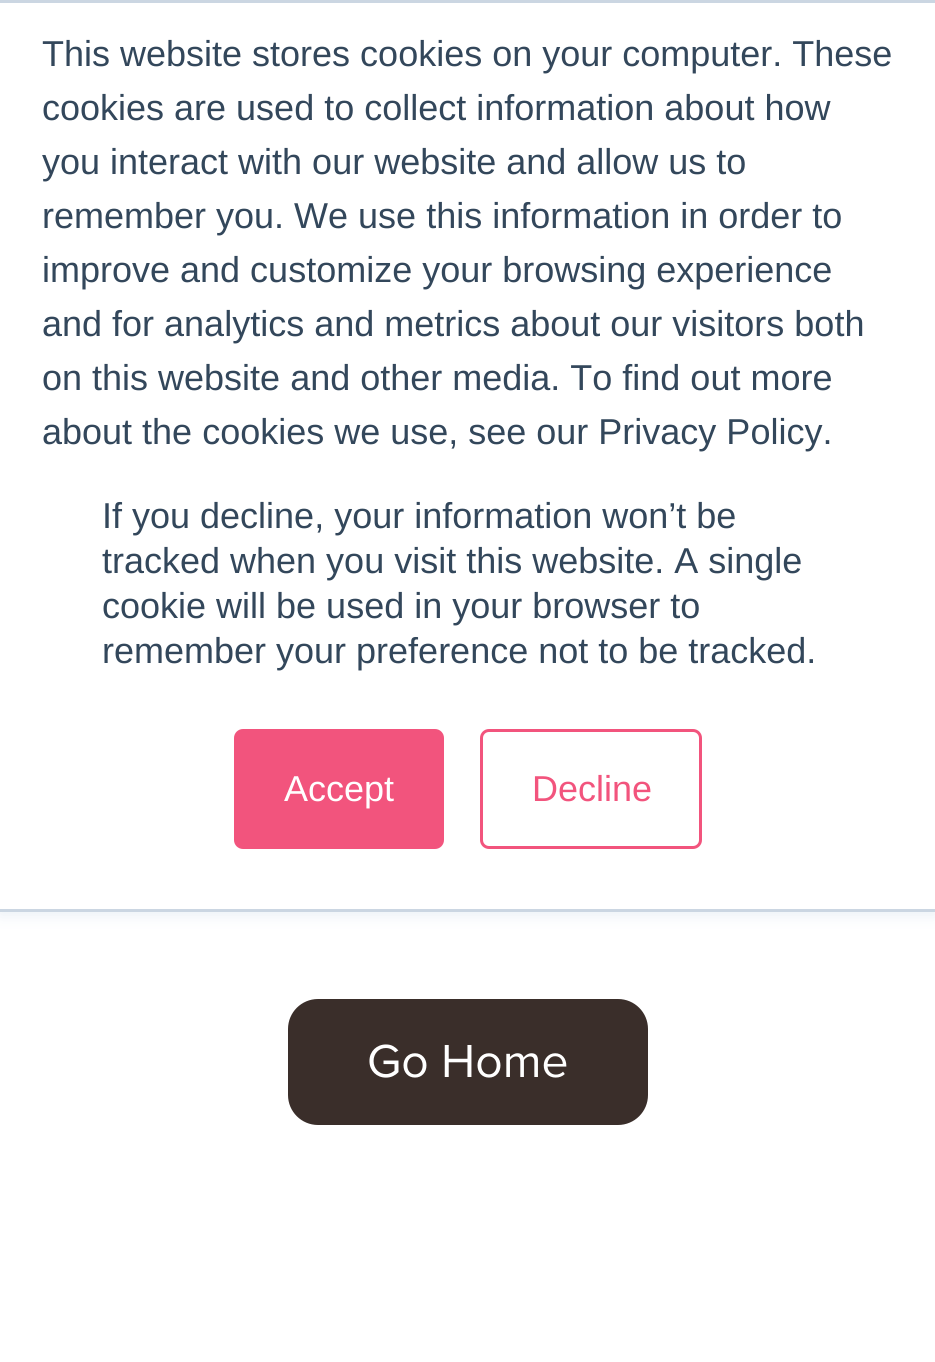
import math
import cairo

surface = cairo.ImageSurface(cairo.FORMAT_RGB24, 935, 1362)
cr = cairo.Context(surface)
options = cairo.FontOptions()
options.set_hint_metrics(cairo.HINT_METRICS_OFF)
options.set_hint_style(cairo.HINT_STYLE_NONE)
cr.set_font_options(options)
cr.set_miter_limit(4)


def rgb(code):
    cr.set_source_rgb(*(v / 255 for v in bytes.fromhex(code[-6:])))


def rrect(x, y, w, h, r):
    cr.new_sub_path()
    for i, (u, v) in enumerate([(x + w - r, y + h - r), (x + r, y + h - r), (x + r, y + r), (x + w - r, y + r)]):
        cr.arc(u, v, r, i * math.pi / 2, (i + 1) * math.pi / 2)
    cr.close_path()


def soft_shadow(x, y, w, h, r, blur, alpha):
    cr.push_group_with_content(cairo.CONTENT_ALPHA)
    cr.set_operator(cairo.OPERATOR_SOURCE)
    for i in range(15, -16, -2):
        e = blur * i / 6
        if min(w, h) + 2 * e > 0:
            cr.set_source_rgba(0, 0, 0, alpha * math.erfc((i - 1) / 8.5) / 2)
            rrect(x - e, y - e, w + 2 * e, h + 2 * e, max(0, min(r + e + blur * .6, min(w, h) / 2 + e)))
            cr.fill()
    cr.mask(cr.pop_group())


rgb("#ffffff")
cr.paint()
rgb("#eaf0f6")
soft_shadow(0, 3, 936, 912, 0, 7.5, 1)
for x, y, w, h, color in [
    (0, 3, 935, 906, "#ffffff"),
    (0, 0, 935, 3, "#cbd6e2"),
    (0, 909, 935, 3, "#cbd6e2"),
]:
    rgb(color)
    cr.rectangle(x, y, w, h)
    cr.fill()
rgb("#f2547d")
rrect(235.5, 730.5, 207, 117, 7.5)
cr.fill_preserve()
cr.set_line_width(3)
cr.stroke()
rrect(481.5, 730.5, 219, 117, 7.5)
cr.stroke()
rgb("#3a2e2a")
rrect(289.5, 1000.5, 357, 123, 28.5)
cr.fill_preserve()
cr.stroke()
cr.select_font_face("Liberation Sans")
cr.set_font_size(36)
rgb("#33475b")
for x, y, s in [
    (42, 66, "This website stores cookies on your computer. These"),
    (42, 120, "cookies are used to collect information about how"),
    (42, 174, "you interact with our website and allow us to"),
    (42, 228, "remember you. We use this information in order to"),
    (42, 282, "improve and customize your browsing experience"),
    (42, 336, "and for analytics and metrics about our visitors both"),
    (42, 390, "on this website and other media. To find out more"),
    (42, 444, "about the cookies we use, see our Privacy Policy."),
    (102, 528, "If you decline, your information won’t be"),
    (102, 573, "tracked when you visit this website. A single"),
    (102, 618, "cookie will be used in your browser to"),
    (102, 663, "remember your preference not to be tracked."),
]:
    cr.move_to(x, y)
    cr.show_text(s)
rgb("#ffffff")
cr.move_to(284, 801)
cr.show_text("Accept")
rgb("#f2547d")
cr.move_to(532, 801)
cr.show_text("Decline")
cr.select_font_face("Proxima Nova")
cr.set_font_size(48)
rgb("#ffffff")
cr.move_to(367, 1077)
cr.show_text("Go Home")
surface.write_to_png("page.png")
